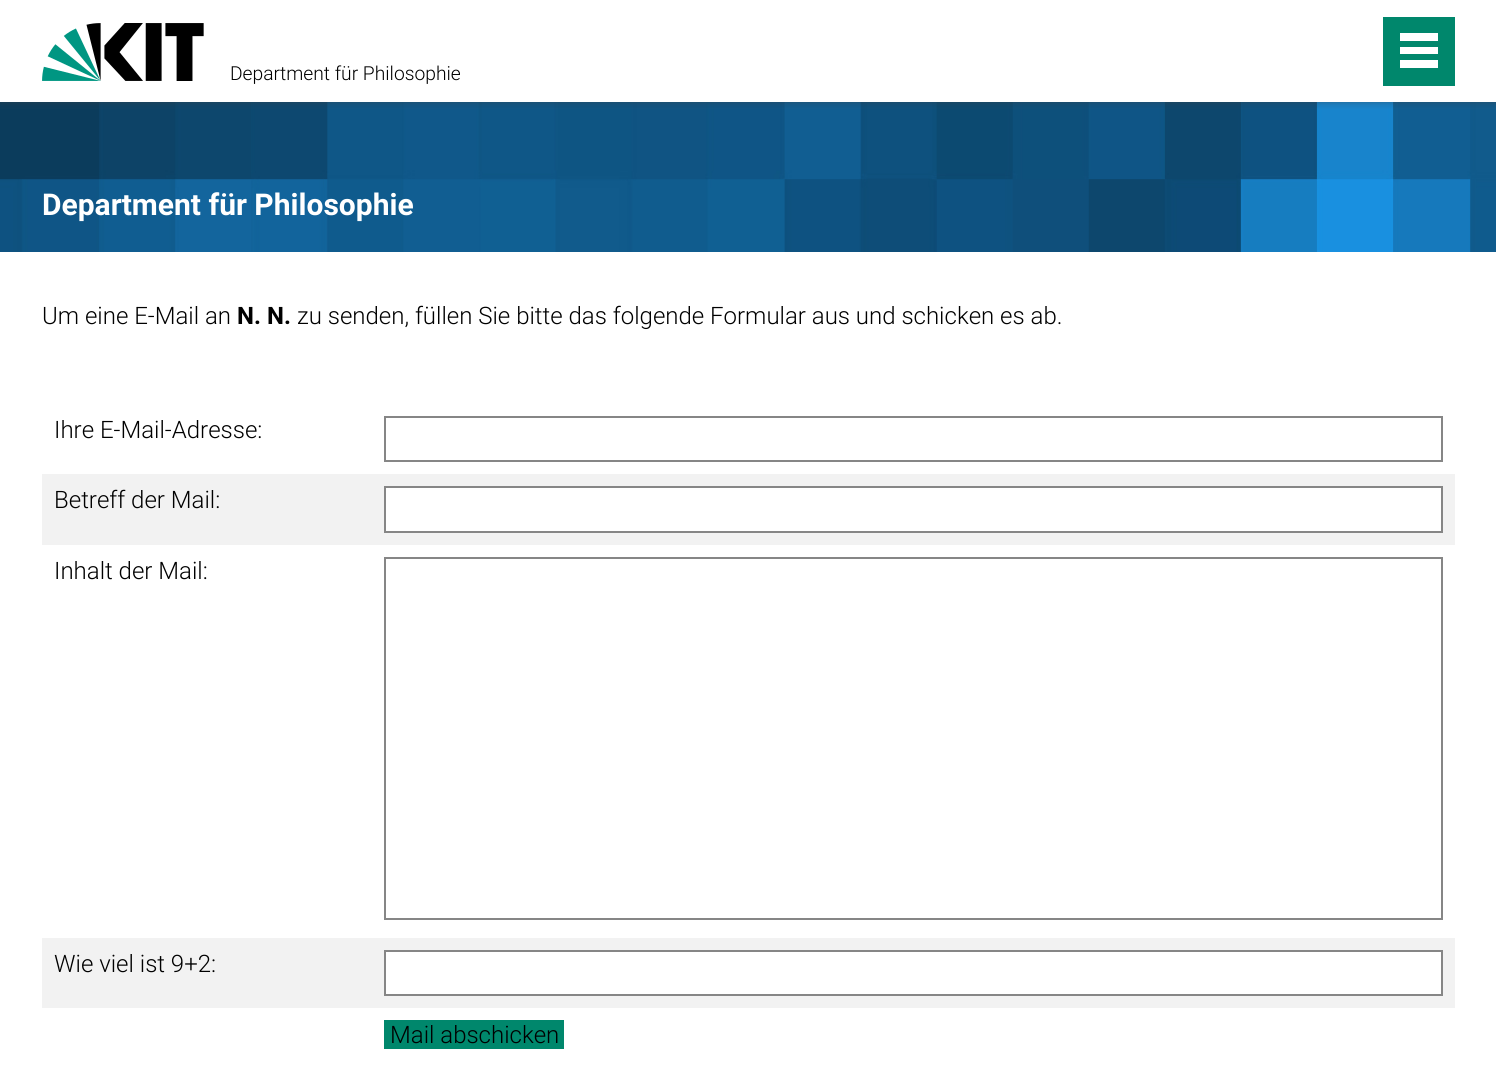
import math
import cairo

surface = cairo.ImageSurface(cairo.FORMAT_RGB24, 1496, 1068)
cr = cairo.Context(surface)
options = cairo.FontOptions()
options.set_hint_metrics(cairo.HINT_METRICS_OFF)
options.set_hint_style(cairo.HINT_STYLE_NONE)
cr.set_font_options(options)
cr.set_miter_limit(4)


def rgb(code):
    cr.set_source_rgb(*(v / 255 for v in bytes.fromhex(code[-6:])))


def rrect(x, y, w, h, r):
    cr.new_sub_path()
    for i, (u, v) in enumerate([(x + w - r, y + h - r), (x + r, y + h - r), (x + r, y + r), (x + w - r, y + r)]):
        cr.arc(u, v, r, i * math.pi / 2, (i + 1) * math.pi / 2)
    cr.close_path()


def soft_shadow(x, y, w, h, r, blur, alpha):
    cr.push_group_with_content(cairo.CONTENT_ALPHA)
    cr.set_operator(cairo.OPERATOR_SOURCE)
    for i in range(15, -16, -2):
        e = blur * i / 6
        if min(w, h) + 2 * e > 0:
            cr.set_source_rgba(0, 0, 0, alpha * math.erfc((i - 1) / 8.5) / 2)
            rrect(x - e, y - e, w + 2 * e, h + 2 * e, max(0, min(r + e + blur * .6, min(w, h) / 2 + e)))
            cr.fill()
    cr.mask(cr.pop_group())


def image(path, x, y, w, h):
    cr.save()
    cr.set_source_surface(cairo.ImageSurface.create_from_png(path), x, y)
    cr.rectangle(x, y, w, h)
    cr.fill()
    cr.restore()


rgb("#ffffff")
cr.paint()
image("img/2.png", 0, 102, 1496, 150)
cr.save()
cr.rectangle(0, 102, 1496, 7)
cr.clip()
rgb("#404040")
soft_shadow(0, 0, 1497, 102, 0, 4, 0.5)
cr.restore()
image("img/1.png", 42, 23, 162, 58)
for x, y, w, h, color in [
    (1383, 17, 72, 69, "#00876c"),
    (1400, 60, 38, 8, "#ffffff"),
    (1400, 47, 38, 7, "#ffffff"),
    (1400, 33, 38, 8, "#ffffff"),
]:
    rgb(color)
    cr.rectangle(x, y, w, h)
    cr.fill()
cr.rectangle(385, 417, 1057, 44)
rgb("#868686")
cr.stroke()
rgb("#f2f2f2")
cr.rectangle(42, 474, 1413, 71)
cr.fill()
rgb("#ffffff")
cr.rectangle(385, 487, 1057, 45)
cr.fill_preserve()
rgb("#868686")
cr.stroke()
cr.rectangle(385, 558, 1057, 361)
cr.stroke()
rgb("#f2f2f2")
cr.rectangle(42, 938, 1413, 70)
cr.fill()
rgb("#ffffff")
cr.rectangle(385, 951, 1057, 44)
cr.fill_preserve()
rgb("#868686")
cr.stroke()
rgb("#00876c")
cr.rectangle(384, 1020, 180, 29)
cr.fill()
cr.select_font_face("Roboto Light")
cr.set_font_size(19.25)
rgb("#000000")
cr.move_to(230, 80)
cr.show_text("Department für Philosophie")
cr.select_font_face("Roboto", cairo.FONT_SLANT_NORMAL, cairo.FONT_WEIGHT_BOLD)
cr.set_font_size(30)
rgb("#ffffff")
cr.move_to(42, 215)
cr.show_text("Department für Philosophie")
cr.select_font_face("Roboto Light")
cr.set_font_size(24)
rgb("#000000")
cr.move_to(42, 324)
cr.show_text("Um eine E-Mail an")
cr.select_font_face("Roboto", cairo.FONT_SLANT_NORMAL, cairo.FONT_WEIGHT_BOLD)
cr.move_to(237, 324)
cr.show_text("N. N.")
cr.select_font_face("Roboto Light")
for x, y, s in [
    (297, 324, "zu senden, füllen Sie bitte das folgende Formular aus und schicken es ab."),
    (54, 438, "Ihre E-Mail-Adresse:"),
    (54, 508, "Betreff der Mail:"),
    (54, 579, "Inhalt der Mail:"),
    (54, 972, "Wie viel ist 9+2:"),
    (390, 1043, "Mail abschicken"),
]:
    cr.move_to(x, y)
    cr.show_text(s)
surface.write_to_png("page.png")
